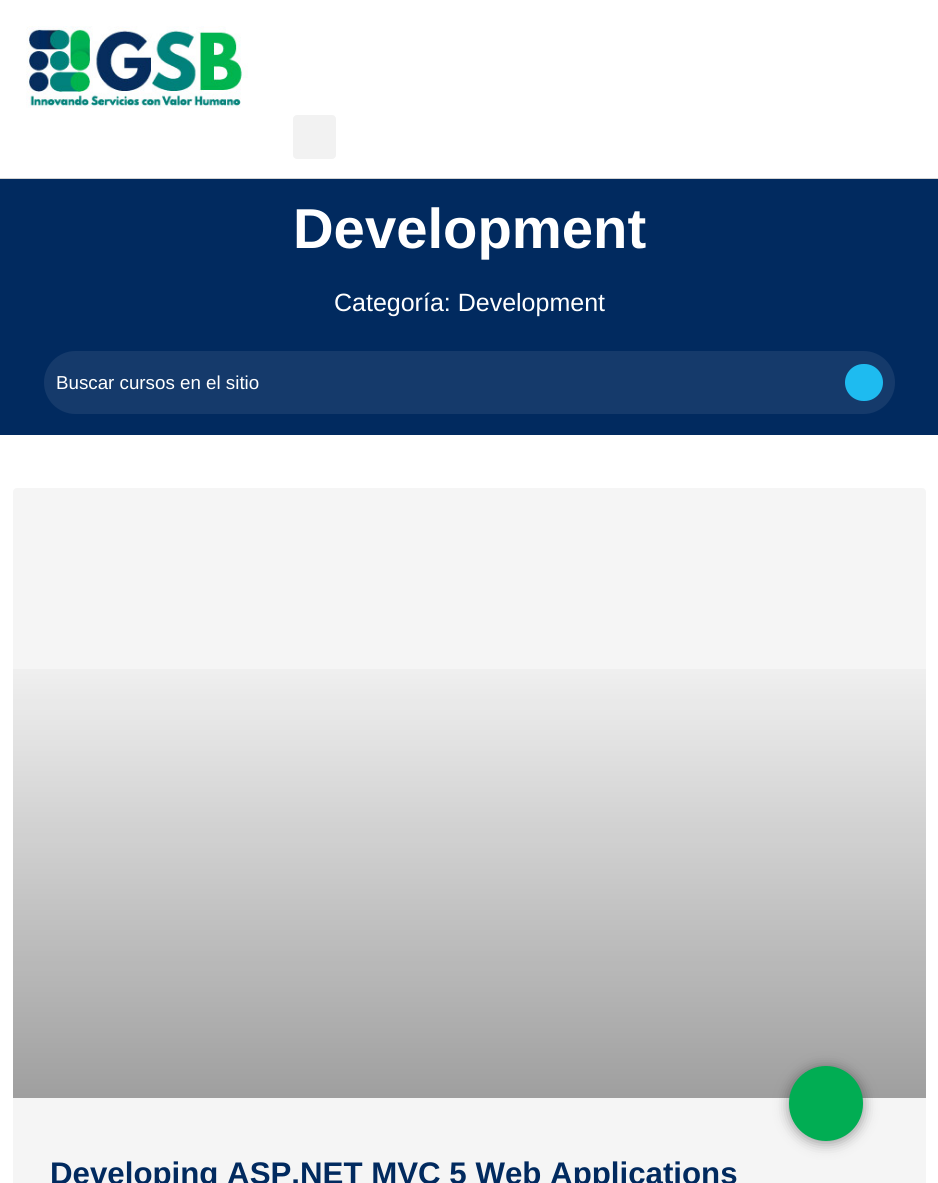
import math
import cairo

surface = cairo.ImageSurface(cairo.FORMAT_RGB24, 938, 1183)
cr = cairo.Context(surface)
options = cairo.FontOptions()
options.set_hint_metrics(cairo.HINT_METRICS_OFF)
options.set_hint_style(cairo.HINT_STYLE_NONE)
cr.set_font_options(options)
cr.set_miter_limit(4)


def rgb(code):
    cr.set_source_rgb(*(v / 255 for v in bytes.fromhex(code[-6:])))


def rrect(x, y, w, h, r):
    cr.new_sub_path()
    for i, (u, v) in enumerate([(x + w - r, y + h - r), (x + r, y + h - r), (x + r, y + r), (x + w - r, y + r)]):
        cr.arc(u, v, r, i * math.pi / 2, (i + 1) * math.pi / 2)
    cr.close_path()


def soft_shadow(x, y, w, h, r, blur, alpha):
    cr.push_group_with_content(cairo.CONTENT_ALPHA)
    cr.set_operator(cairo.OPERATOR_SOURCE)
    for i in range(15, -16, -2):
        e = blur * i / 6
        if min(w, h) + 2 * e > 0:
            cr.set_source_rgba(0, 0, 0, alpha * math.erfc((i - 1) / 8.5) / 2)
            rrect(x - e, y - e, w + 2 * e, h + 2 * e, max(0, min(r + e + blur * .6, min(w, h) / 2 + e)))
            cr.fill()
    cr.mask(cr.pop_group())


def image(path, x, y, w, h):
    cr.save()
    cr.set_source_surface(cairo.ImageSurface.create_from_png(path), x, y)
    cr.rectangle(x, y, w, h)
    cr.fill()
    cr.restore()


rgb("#ffffff")
cr.paint()
rgb("#d3d3d3")
cr.rectangle(0, 178, 938, 1)
cr.fill()
image("img/1.png", 26, 26, 222, 82)
rgb("#f2f2f2")
rrect(293, 115, 43, 44, 4)
cr.fill()
rgb("#012a5f")
cr.rectangle(0, 179, 938, 256)
cr.fill()
rgb("#153a6b")
rrect(44, 351, 851, 63, 31.5)
cr.fill()
rgb("#1ebbf0")
rrect(845, 364, 38, 37, 18.5)
cr.fill()
rgb("#f5f5f5")
rrect(13, 488, 913, 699, 4)
cr.fill()
gradient = cairo.LinearGradient(469, 1098, 469, 488)
gradient.add_color_stop_rgba(0, 0, 0, 0, 0.35)
gradient.add_color_stop_rgba(0.75, 0, 0, 0, 0)
cr.set_source(gradient)
cr.rectangle(13, 669, 913, 429)
cr.fill()
rgb("#000000")
soft_shadow(789, 1068, 74, 75, 37, 7, 0.4)
rgb("#01ad53")
rrect(789, 1066, 74, 75, 37)
cr.fill()
cr.select_font_face("Liberation Sans", cairo.FONT_SLANT_NORMAL, cairo.FONT_WEIGHT_BOLD)
cr.set_font_size(56.25)
rgb("#ffffff")
cr.move_to(293, 248)
cr.show_text("Development")
cr.select_font_face("Liberation Sans")
cr.set_font_size(25)
cr.move_to(334, 311)
cr.show_text("Categoría: Development")
cr.set_font_size(18.75)
cr.move_to(56, 389)
cr.show_text("Buscar cursos en el sitio")
cr.select_font_face("Liberation Sans", cairo.FONT_SLANT_NORMAL, cairo.FONT_WEIGHT_BOLD)
cr.set_font_size(31.25)
rgb("#012a5f")
cr.move_to(50, 1184)
cr.show_text("Developing ASP.NET MVC 5 Web Applications")
surface.write_to_png("page.png")
